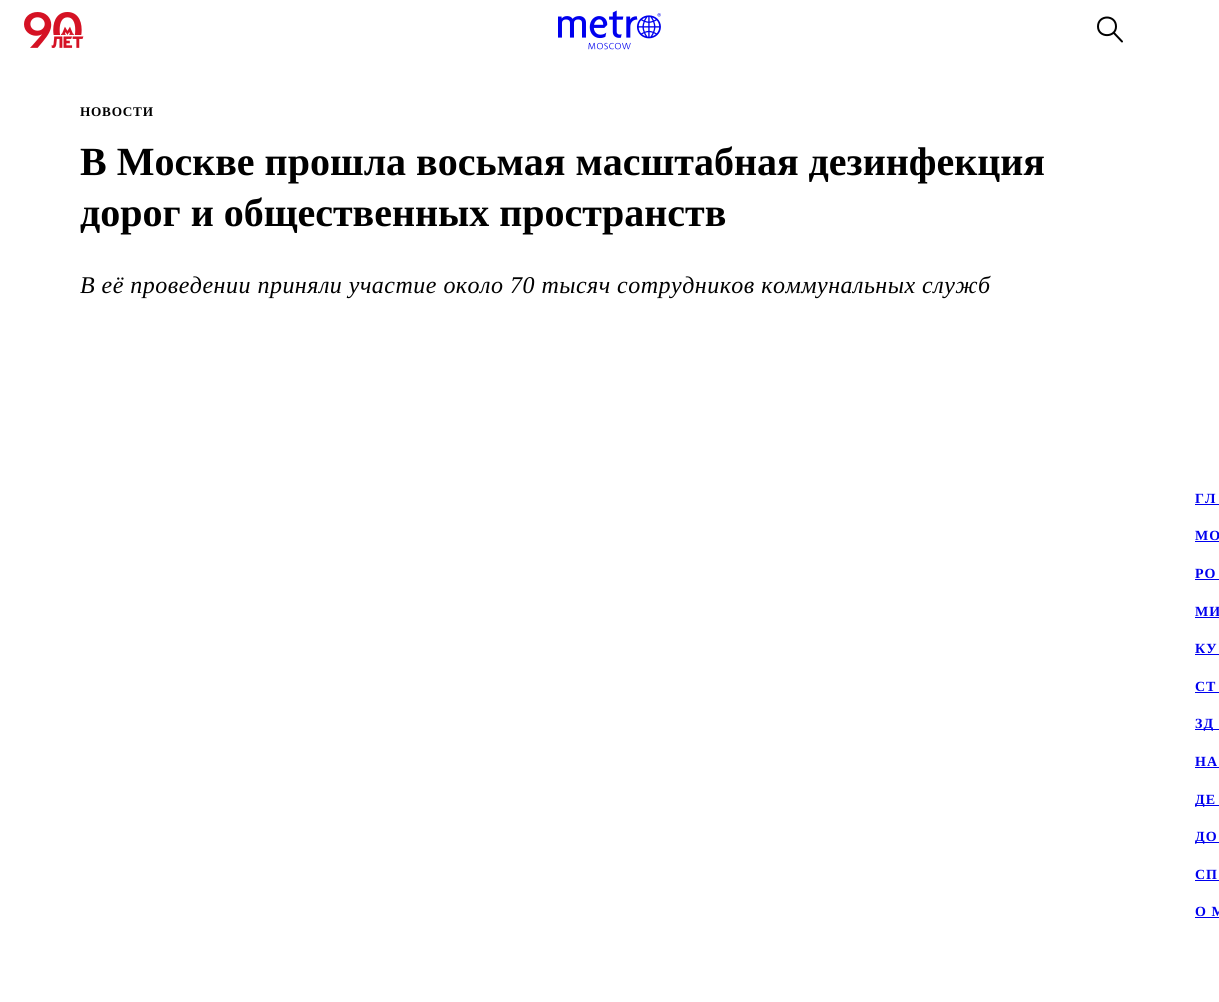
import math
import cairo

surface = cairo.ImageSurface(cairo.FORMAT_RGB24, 1219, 1002)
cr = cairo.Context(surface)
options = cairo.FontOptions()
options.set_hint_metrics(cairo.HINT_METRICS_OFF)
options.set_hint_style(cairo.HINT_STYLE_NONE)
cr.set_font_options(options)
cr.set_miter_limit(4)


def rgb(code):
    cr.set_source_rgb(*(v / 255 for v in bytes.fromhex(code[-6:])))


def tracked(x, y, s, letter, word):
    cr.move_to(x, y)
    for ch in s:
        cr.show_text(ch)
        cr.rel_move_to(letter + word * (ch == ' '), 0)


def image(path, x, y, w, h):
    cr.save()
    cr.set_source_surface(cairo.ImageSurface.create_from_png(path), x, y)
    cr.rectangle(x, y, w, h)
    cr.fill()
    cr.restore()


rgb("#ffffff")
cr.paint()
image("img/1.png", 24, 12, 60, 36)
image("img/2.png", 558, 10, 103, 40)
cr.new_path()
cr.move_to(1122, 41.5)
cr.line_to(1113.5, 32.5)
cr.move_to(1116, 26.5)
cr.curve_to(1116, 38, 1098, 38, 1098, 26.5)
cr.curve_to(1098, 14.5, 1116, 14.5, 1116, 26.5)
rgb("#000000")
cr.set_line_cap(cairo.LINE_CAP_ROUND)
cr.set_line_join(cairo.LINE_JOIN_ROUND)
cr.stroke()
for x, y, w, h, color in [
    (1195, 504, 24, 1, "#0000ee"),
    (1195, 541, 24, 1, "#0000ee"),
    (1195, 579, 24, 1, "#0000ee"),
    (1195, 617, 24, 1, "#0000ee"),
    (1195, 654, 24, 1, "#0000ee"),
    (1195, 692, 24, 1, "#0000ee"),
    (1195, 729, 24, 1, "#0000ee"),
    (1195, 767, 24, 1, "#0000ee"),
    (1195, 805, 24, 1, "#0000ee"),
    (1195, 842, 24, 1, "#0000ee"),
    (1195, 880, 24, 1, "#0000ee"),
    (1195, 917, 24, 1, "#0000ee"),
]:
    rgb(color)
    cr.rectangle(x, y, w, h)
    cr.fill()
cr.select_font_face("Liberation Serif", cairo.FONT_SLANT_NORMAL, cairo.FONT_WEIGHT_BOLD)
cr.set_font_size(13.25)
rgb("#000000")
tracked(80, 116, "НОВОСТИ", 0.75, 0)
cr.set_font_size(40)
cr.move_to(80, 175)
cr.show_text("В Москве прошла восьмая масштабная дезинфекция")
cr.move_to(80, 226)
cr.show_text("дорог и общественных пространств")
cr.select_font_face("Liberation Serif", cairo.FONT_SLANT_ITALIC)
cr.set_font_size(24)
tracked(80, 293, "В её проведении приняли участие около 70 тысяч сотрудников коммунальных служб", 0.48, 0)
cr.select_font_face("Liberation Serif", cairo.FONT_SLANT_NORMAL, cairo.FONT_WEIGHT_BOLD)
cr.set_font_size(14)
rgb("#0000ee")
for x, y, s in [
    (1195, 503, "ГЛ"),
    (1195, 540, "МО"),
    (1195, 578, "РО"),
    (1195, 616, "МИ"),
    (1195, 653, "КУ"),
    (1195, 691, "СТ"),
    (1195, 728, "ЗД"),
    (1195, 766, "НА"),
    (1195, 804, "ДЕ"),
    (1195, 841, "ДО"),
    (1195, 879, "СП"),
    (1195, 916, "О M"),
]:
    tracked(x, y, s, 1, 0)
surface.write_to_png("page.png")
